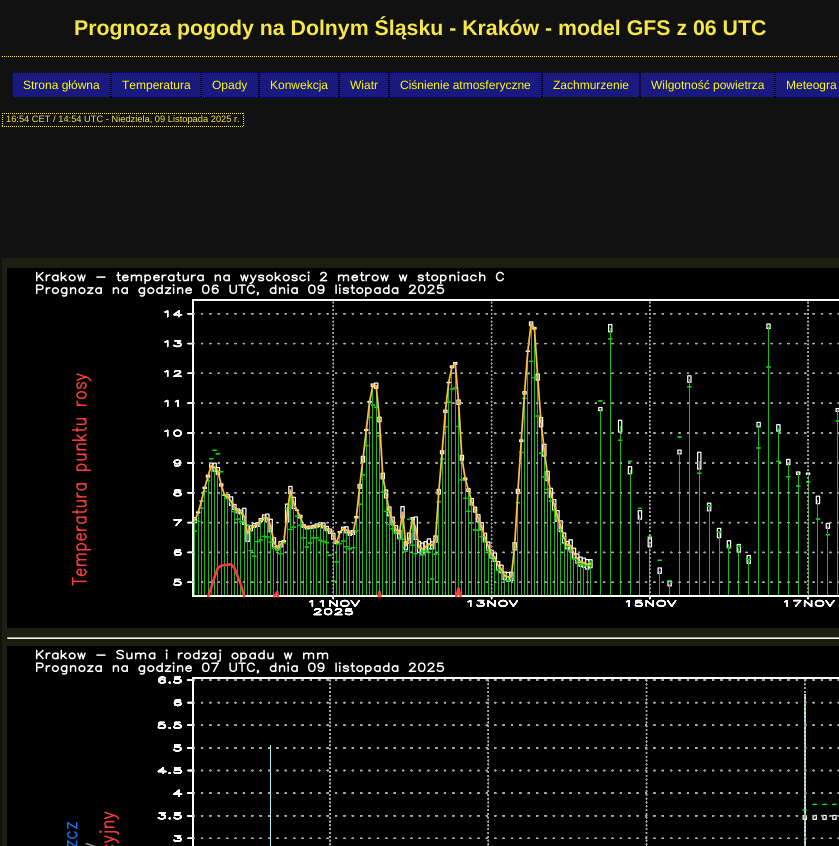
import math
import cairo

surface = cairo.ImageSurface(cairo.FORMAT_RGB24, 839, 846)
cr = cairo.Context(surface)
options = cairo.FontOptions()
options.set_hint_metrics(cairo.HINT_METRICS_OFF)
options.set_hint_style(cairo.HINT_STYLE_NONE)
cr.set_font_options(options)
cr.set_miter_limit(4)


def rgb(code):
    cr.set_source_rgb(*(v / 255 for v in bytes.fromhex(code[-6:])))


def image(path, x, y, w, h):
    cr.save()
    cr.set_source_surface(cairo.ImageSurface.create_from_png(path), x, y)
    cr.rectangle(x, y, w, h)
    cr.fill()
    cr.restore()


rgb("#111111")
cr.paint()
cr.new_path()
cr.move_to(2, 56.5)
cr.line_to(837, 56.5)
rgb("#f6e646")
cr.set_line_width(1)
cr.set_dash([1, 1])
cr.stroke()
rgb("#19197f")
cr.rectangle(12, 72, 827, 26)
cr.fill()
cr.new_path()
cr.move_to(12, 72.5)
cr.line_to(111, 72.5)
rgb("#000000")
cr.stroke()
cr.new_path()
cr.move_to(110.5, 72)
cr.line_to(110.5, 98)
cr.stroke()
cr.new_path()
cr.move_to(12, 97.5)
cr.line_to(111, 97.5)
cr.stroke()
cr.new_path()
cr.move_to(12.5, 72)
cr.line_to(12.5, 98)
cr.stroke()
cr.new_path()
cr.move_to(111, 72.5)
cr.line_to(201, 72.5)
cr.stroke()
cr.new_path()
cr.move_to(200.5, 72)
cr.line_to(200.5, 98)
cr.stroke()
cr.new_path()
cr.move_to(111, 97.5)
cr.line_to(201, 97.5)
cr.stroke()
cr.new_path()
cr.move_to(111.5, 72)
cr.line_to(111.5, 98)
cr.stroke()
cr.new_path()
cr.move_to(201, 72.5)
cr.line_to(259, 72.5)
cr.move_to(258.5, 72)
cr.line_to(258.5, 98)
cr.move_to(201, 97.5)
cr.line_to(259, 97.5)
cr.move_to(201.5, 72)
cr.line_to(201.5, 98)
cr.stroke()
cr.new_path()
cr.move_to(259, 72.5)
cr.line_to(339, 72.5)
cr.stroke()
cr.new_path()
cr.move_to(338.5, 72)
cr.line_to(338.5, 98)
cr.stroke()
cr.new_path()
cr.move_to(259, 97.5)
cr.line_to(339, 97.5)
cr.stroke()
cr.new_path()
cr.move_to(259.5, 72)
cr.line_to(259.5, 98)
cr.stroke()
cr.new_path()
cr.move_to(339, 72.5)
cr.line_to(389, 72.5)
cr.move_to(388.5, 72)
cr.line_to(388.5, 98)
cr.move_to(339, 97.5)
cr.line_to(389, 97.5)
cr.move_to(339.5, 72)
cr.line_to(339.5, 98)
cr.stroke()
cr.new_path()
cr.move_to(389, 72.5)
cr.line_to(542, 72.5)
cr.stroke()
cr.new_path()
cr.move_to(541.5, 72)
cr.line_to(541.5, 98)
cr.stroke()
cr.new_path()
cr.move_to(389, 97.5)
cr.line_to(542, 97.5)
cr.stroke()
cr.new_path()
cr.move_to(389.5, 72)
cr.line_to(389.5, 98)
cr.stroke()
cr.new_path()
cr.move_to(542, 72.5)
cr.line_to(640, 72.5)
cr.stroke()
cr.new_path()
cr.move_to(639.5, 72)
cr.line_to(639.5, 98)
cr.stroke()
cr.new_path()
cr.move_to(542, 97.5)
cr.line_to(640, 97.5)
cr.stroke()
cr.new_path()
cr.move_to(542.5, 72)
cr.line_to(542.5, 98)
cr.stroke()
cr.new_path()
cr.move_to(640, 72.5)
cr.line_to(775, 72.5)
cr.stroke()
cr.new_path()
cr.move_to(774.5, 72)
cr.line_to(774.5, 98)
cr.stroke()
cr.new_path()
cr.move_to(640, 97.5)
cr.line_to(775, 97.5)
cr.stroke()
cr.new_path()
cr.move_to(640.5, 72)
cr.line_to(640.5, 98)
cr.stroke()
cr.new_path()
cr.move_to(775, 72.5)
cr.line_to(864, 72.5)
cr.move_to(775, 97.5)
cr.line_to(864, 97.5)
cr.move_to(775.5, 72)
cr.line_to(775.5, 98)
cr.stroke()
cr.new_path()
cr.move_to(2, 113.5)
cr.line_to(244, 113.5)
rgb("#f6e646")
cr.stroke()
cr.new_path()
cr.move_to(243.5, 113)
cr.line_to(243.5, 127)
cr.stroke()
cr.new_path()
cr.move_to(2, 126.5)
cr.line_to(244, 126.5)
cr.stroke()
cr.new_path()
cr.move_to(2.5, 113)
cr.line_to(2.5, 127)
cr.stroke()
rgb("#1d1d11")
cr.rectangle(2, 258, 837, 588)
cr.fill()
image("img/1.png", 7, 268, 832, 360)
for x, y, w, h, color in [
    (7, 637, 832, 1, "#9f9f9f"),
    (7, 638, 832, 1, "#eeeeee"),
    (7, 637, 1, 2, "#9f9f9f"),
]:
    rgb(color)
    cr.rectangle(x, y, w, h)
    cr.fill()
image("img/2.png", 7, 646, 832, 200)
cr.select_font_face("Liberation Sans", cairo.FONT_SLANT_NORMAL, cairo.FONT_WEIGHT_BOLD)
cr.set_font_size(21.3)
rgb("#f6e646")
cr.move_to(74, 35)
cr.show_text("Prognoza pogody na Dolnym Śląsku - Kraków - model GFS z 06 UTC")
cr.select_font_face("Liberation Sans")
cr.set_font_size(12)
rgb("#ffff00")
for x, y, s in [
    (23, 89, "Strona główna"),
    (122, 89, "Temperatura"),
    (212, 89, "Opady"),
    (270, 89, "Konwekcja"),
    (350, 89, "Wiatr"),
    (400, 89, "Ciśnienie atmosferyczne"),
    (553, 89, "Zachmurzenie"),
    (651, 89, "Wilgotność powietrza"),
    (786, 89, "Meteogra"),
]:
    cr.move_to(x, y)
    cr.show_text(s)
cr.set_font_size(9.3)
rgb("#f6e646")
cr.move_to(6, 122)
cr.show_text("16:54 CET / 14:54 UTC - Niedziela, 09 Listopada 2025 r.")
surface.write_to_png("page.png")
